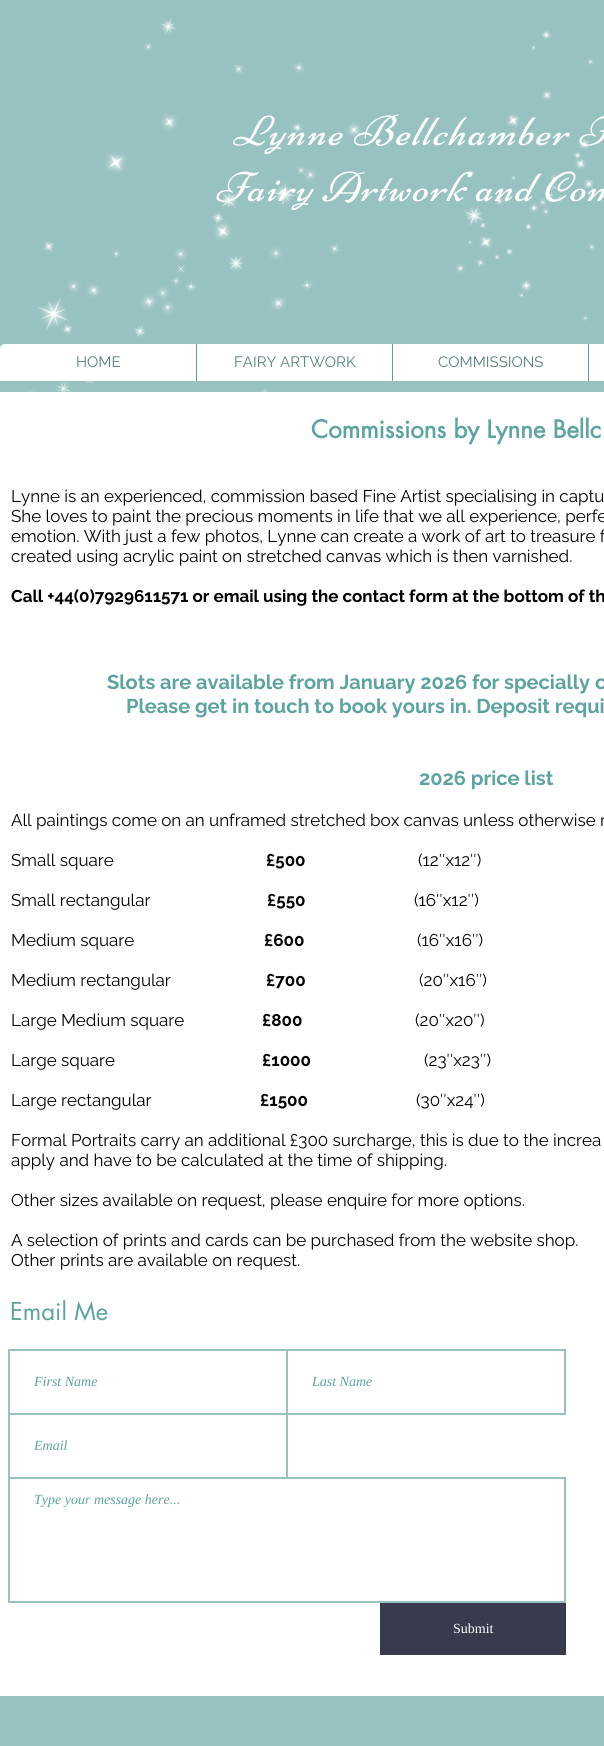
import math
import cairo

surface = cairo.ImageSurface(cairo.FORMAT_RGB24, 604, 1746)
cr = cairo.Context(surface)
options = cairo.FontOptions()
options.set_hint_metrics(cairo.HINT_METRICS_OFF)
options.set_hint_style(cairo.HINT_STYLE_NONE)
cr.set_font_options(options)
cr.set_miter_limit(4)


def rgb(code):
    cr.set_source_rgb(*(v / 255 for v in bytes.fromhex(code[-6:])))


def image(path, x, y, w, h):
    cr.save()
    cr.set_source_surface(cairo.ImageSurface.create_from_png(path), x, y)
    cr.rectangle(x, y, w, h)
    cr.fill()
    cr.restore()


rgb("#98c2c1")
cr.paint()
image("img/3.png", 233, 114, 371, 41)
image("img/4.png", 216, 171, 388, 40)
image("img/1.png", 26, 18, 336, 374)
image("img/2.png", 456, 30, 140, 291)
rgb("#ffffff")
cr.new_path()
cr.move_to(5, 344)
cr.line_to(604, 344)
cr.curve_to(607, 344, 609, 346, 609, 349)
cr.line_to(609, 381)
cr.line_to(0, 381)
cr.line_to(0, 349)
cr.curve_to(0, 346, 2, 344, 5, 344)
cr.close_path()
cr.fill()
for x, y, w, h, color in [
    (196, 344, 1, 37, "#5da3a2"),
    (392, 344, 1, 37, "#5da3a2"),
    (588, 344, 1, 37, "#5da3a2"),
    (0, 392, 604, 1304, "#ffffff"),
]:
    rgb(color)
    cr.rectangle(x, y, w, h)
    cr.fill()
cr.rectangle(9, 1350, 278, 64)
rgb("#98c2c1")
cr.stroke()
cr.rectangle(287, 1350, 278, 64)
cr.stroke()
cr.rectangle(9, 1414, 278, 64)
cr.stroke()
cr.rectangle(9, 1478, 556, 124)
cr.stroke()
rgb("#373b4d")
cr.rectangle(380, 1603, 186, 52)
cr.fill()
cr.select_font_face("Raleway")
cr.set_font_size(15)
rgb("#528282")
for x, y, s in [
    (76, 367, "HOME"),
    (234, 367, "FAIRY ARTWORK"),
    (438, 367, "COMMISSIONS"),
]:
    cr.move_to(x, y)
    cr.show_text(s)
cr.select_font_face("futura", cairo.FONT_SLANT_NORMAL, cairo.FONT_WEIGHT_BOLD)
cr.set_font_size(24)
rgb("#5da3a2")
cr.move_to(311, 438)
cr.show_text("Commissions by Lynne Bellc")
cr.select_font_face("Raleway")
cr.set_font_size(17)
rgb("#000000")
for x, y, s in [
    (11, 502, "Lynne is an experienced, commission based Fine Artist specialising in captu"),
    (11, 522, "She loves to paint the precious moments in life that we all experience, perfe"),
    (11, 542, "emotion. With just a few photos, Lynne can create a work of art to treasure f"),
    (11, 562, "created using acrylic paint on stretched canvas which is then varnished."),
]:
    cr.move_to(x, y)
    cr.show_text(s)
cr.select_font_face("Raleway", cairo.FONT_SLANT_NORMAL, cairo.FONT_WEIGHT_BOLD)
cr.move_to(11, 602)
cr.show_text("Call +44(0)7929611571 or email using the contact form at the bottom of th")
cr.set_font_size(20)
rgb("#5da3a2")
for x, y, s in [
    (107, 689, "Slots are available from January 2026 for specially c"),
    (126, 713, "Please get in touch to book yours in. Deposit requi"),
    (419, 785, "2026 price list"),
]:
    cr.move_to(x, y)
    cr.show_text(s)
cr.select_font_face("Raleway")
cr.set_font_size(17)
rgb("#000000")
cr.move_to(11, 826)
cr.show_text("All paintings come on an unframed stretched box canvas unless otherwise r")
cr.move_to(11, 866)
cr.show_text("Small square")
cr.select_font_face("Raleway", cairo.FONT_SLANT_NORMAL, cairo.FONT_WEIGHT_BOLD)
cr.move_to(266, 866)
cr.show_text("£500")
cr.select_font_face("Raleway")
cr.move_to(418, 866)
cr.show_text("(12″x12″)")
cr.move_to(11, 906)
cr.show_text("Small rectangular")
cr.select_font_face("Raleway", cairo.FONT_SLANT_NORMAL, cairo.FONT_WEIGHT_BOLD)
cr.move_to(267, 906)
cr.show_text("£550")
cr.select_font_face("Raleway")
cr.move_to(414, 906)
cr.show_text("(16″x12″)")
cr.move_to(11, 946)
cr.show_text("Medium square")
cr.select_font_face("Raleway", cairo.FONT_SLANT_NORMAL, cairo.FONT_WEIGHT_BOLD)
cr.move_to(264, 946)
cr.show_text("£600")
cr.select_font_face("Raleway")
cr.move_to(417, 946)
cr.show_text("(16″x16″)")
cr.move_to(11, 986)
cr.show_text("Medium rectangular")
cr.select_font_face("Raleway", cairo.FONT_SLANT_NORMAL, cairo.FONT_WEIGHT_BOLD)
cr.move_to(266, 986)
cr.show_text("£700")
cr.select_font_face("Raleway")
cr.move_to(419, 986)
cr.show_text("(20″x16″)")
cr.move_to(11, 1026)
cr.show_text("Large Medium square")
cr.select_font_face("Raleway", cairo.FONT_SLANT_NORMAL, cairo.FONT_WEIGHT_BOLD)
cr.move_to(262, 1026)
cr.show_text("£800")
cr.select_font_face("Raleway")
cr.move_to(415, 1026)
cr.show_text("(20″x20″)")
cr.move_to(11, 1066)
cr.show_text("Large square")
cr.select_font_face("Raleway", cairo.FONT_SLANT_NORMAL, cairo.FONT_WEIGHT_BOLD)
cr.move_to(262, 1066)
cr.show_text("£1000")
cr.select_font_face("Raleway")
cr.move_to(424, 1066)
cr.show_text("(23″x23″)")
cr.move_to(11, 1106)
cr.show_text("Large rectangular")
cr.select_font_face("Raleway", cairo.FONT_SLANT_NORMAL, cairo.FONT_WEIGHT_BOLD)
cr.move_to(260, 1106)
cr.show_text("£1500")
cr.select_font_face("Raleway")
for x, y, s in [
    (416, 1106, "(30″x24″)"),
    (11, 1146, "Formal Portraits carry an additional £300 surcharge, this is due to the increa"),
    (11, 1166, "apply and have to be calculated at the time of shipping."),
    (11, 1206, "Other sizes available on request, please enquire for more options."),
    (11, 1246, "A selection of prints and cards can be purchased from the website shop."),
    (11, 1266, "Other prints are available on request."),
]:
    cr.move_to(x, y)
    cr.show_text(s)
cr.select_font_face("futura")
cr.set_font_size(24)
rgb("#5da3a2")
cr.move_to(10, 1320)
cr.show_text("Email Me")
cr.select_font_face("Liberation Serif", cairo.FONT_SLANT_ITALIC)
cr.set_font_size(14)
for x, y, s in [
    (34, 1386, "First Name"),
    (312, 1386, "Last Name"),
    (34, 1450, "Email"),
    (34, 1504, "Type your message here..."),
]:
    cr.move_to(x, y)
    cr.show_text(s)
cr.select_font_face("Liberation Serif")
rgb("#ffffff")
cr.move_to(453, 1633)
cr.show_text("Submit")
surface.write_to_png("page.png")
